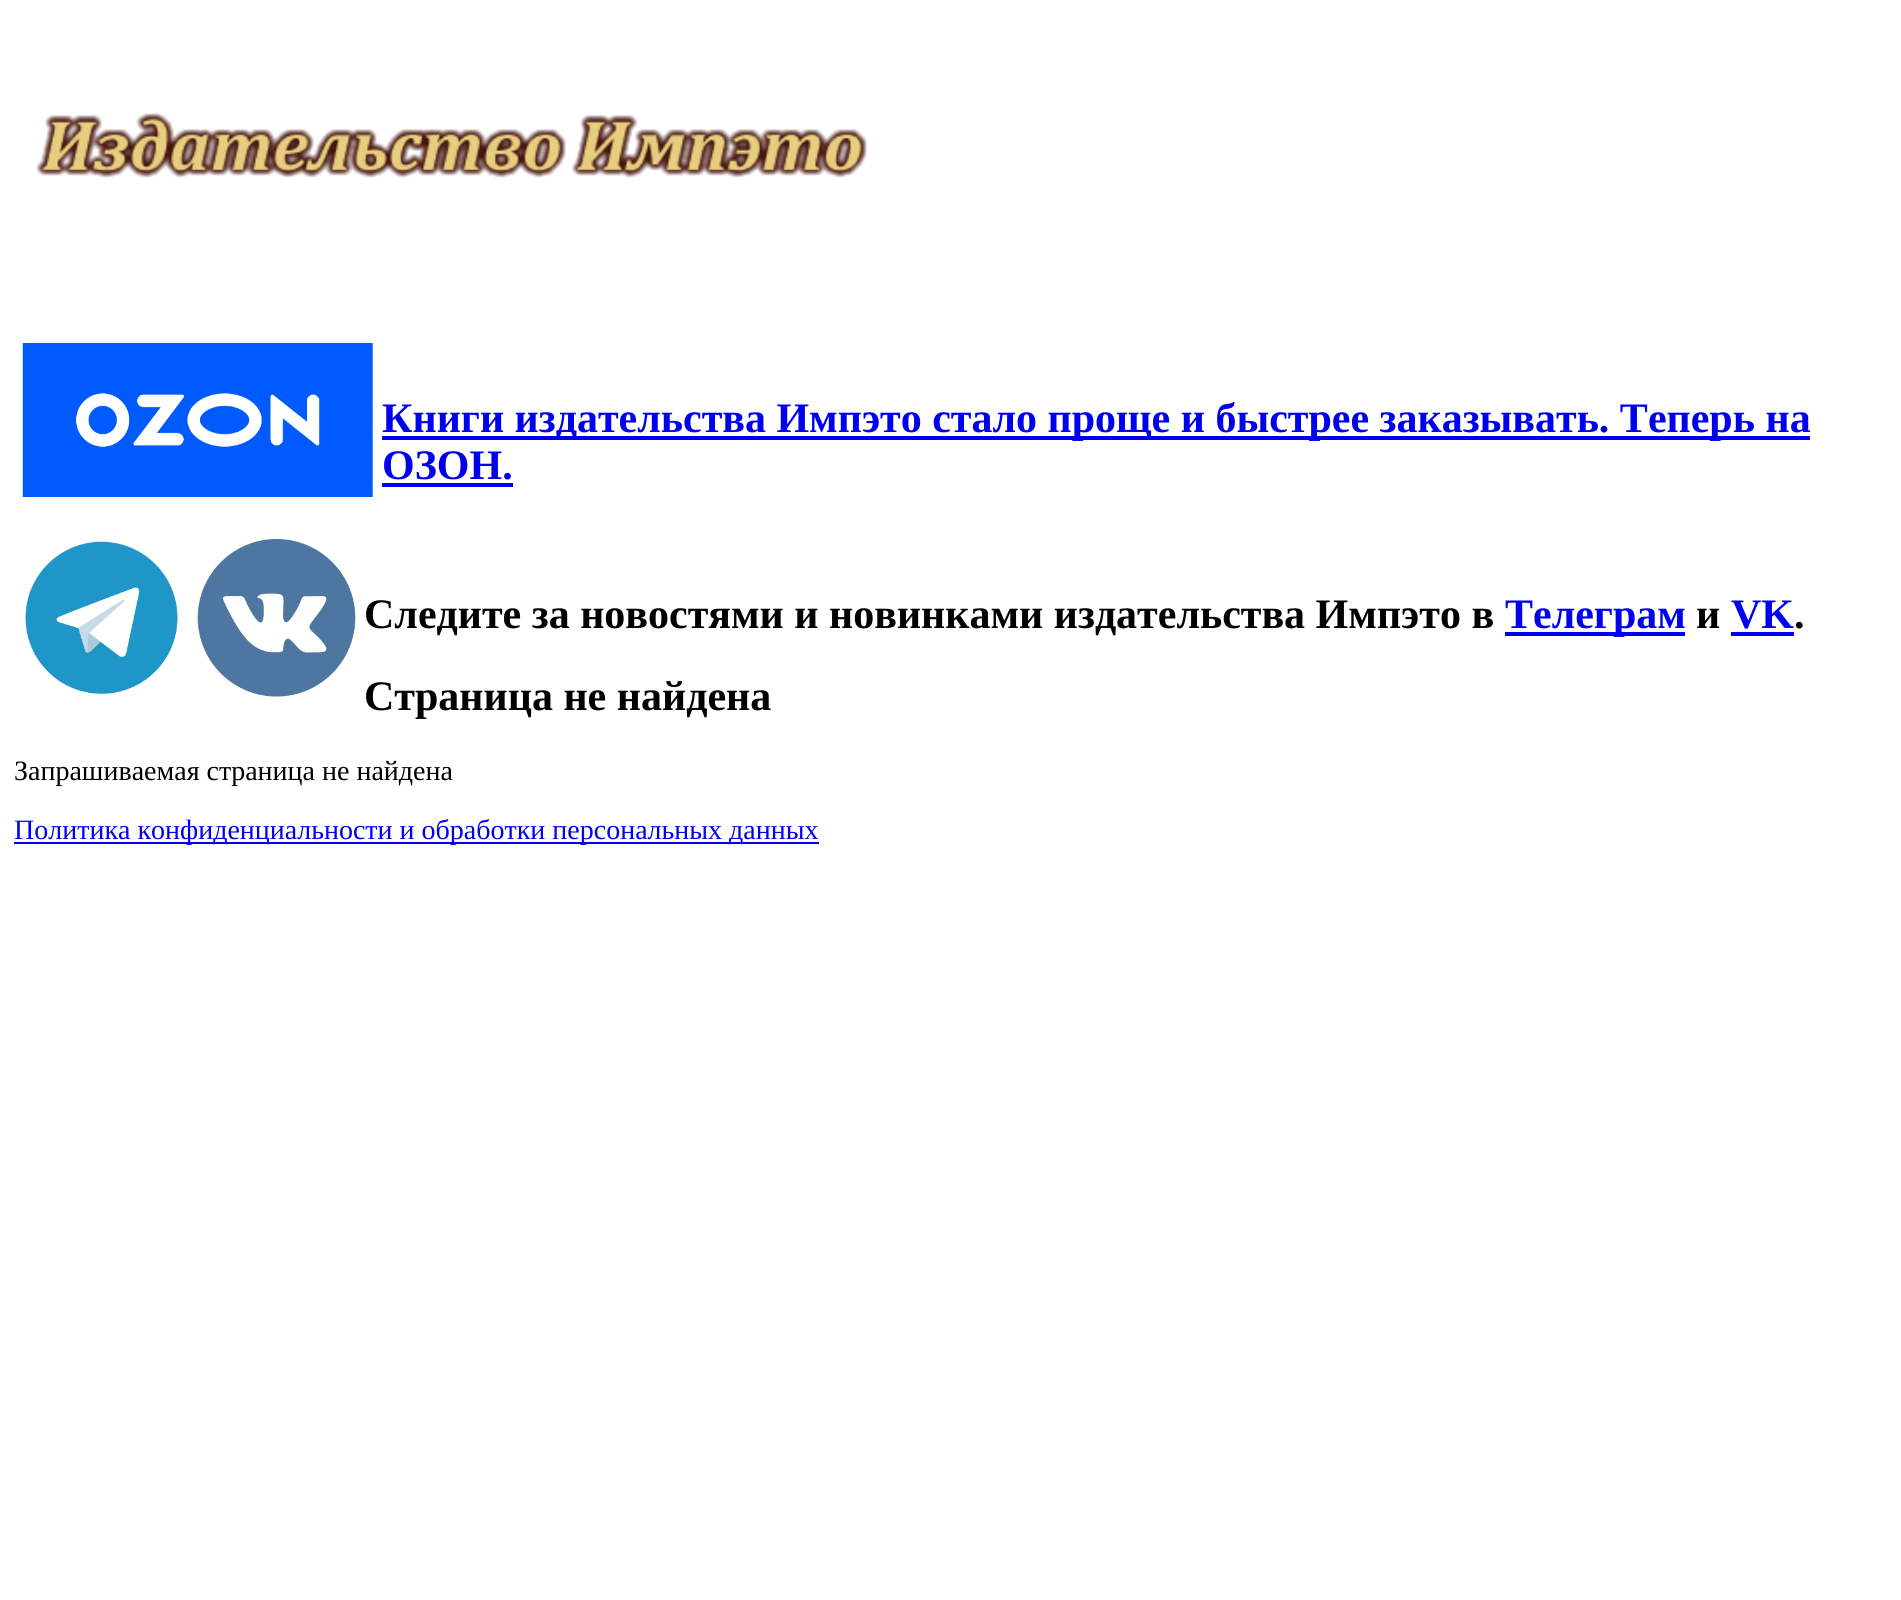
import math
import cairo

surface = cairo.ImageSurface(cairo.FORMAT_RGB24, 1901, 1600)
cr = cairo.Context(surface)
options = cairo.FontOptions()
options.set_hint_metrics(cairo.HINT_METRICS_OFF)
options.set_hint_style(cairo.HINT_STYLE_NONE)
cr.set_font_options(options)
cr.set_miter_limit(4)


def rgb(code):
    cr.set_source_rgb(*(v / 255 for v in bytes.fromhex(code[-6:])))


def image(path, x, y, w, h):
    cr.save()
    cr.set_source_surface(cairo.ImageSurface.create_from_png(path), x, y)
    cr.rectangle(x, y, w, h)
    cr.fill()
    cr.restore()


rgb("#ffffff")
cr.paint()
image("img/1.png", 36, 113, 831, 65)
image("img/2.png", 22, 343, 351, 154)
rgb("#0000ee")
cr.rectangle(382, 436, 1428, 4)
cr.fill()
cr.rectangle(382, 483, 131, 4)
cr.fill()
image("img/3.png", 25, 541, 153, 153)
image("img/4.png", 197, 539, 159, 158)
for x, y, w, h, color in [
    (1505, 632, 180, 4, "#0000ee"),
    (1731, 632, 63, 4, "#0000ee"),
    (14, 842, 805, 2, "#0000ee"),
]:
    rgb(color)
    cr.rectangle(x, y, w, h)
    cr.fill()
cr.select_font_face("Liberation Serif", cairo.FONT_SLANT_NORMAL, cairo.FONT_WEIGHT_BOLD)
cr.set_font_size(42)
cr.move_to(382, 432)
cr.show_text("Книги издательства Импэто стало проще и быстрее заказывать. Теперь на")
cr.move_to(382, 479)
cr.show_text("ОЗОН.")
rgb("#000000")
cr.move_to(364, 628)
cr.show_text("Следите за новостями и новинками издательства Импэто в")
rgb("#0000ee")
cr.move_to(1505, 628)
cr.show_text("Телеграм")
rgb("#000000")
cr.move_to(1696, 628)
cr.show_text("и")
rgb("#0000ee")
cr.move_to(1731, 628)
cr.show_text("VK")
rgb("#000000")
cr.move_to(1794, 628)
cr.show_text(".")
cr.move_to(364, 710)
cr.show_text("Страница не найдена")
cr.select_font_face("Liberation Serif")
cr.set_font_size(28)
cr.move_to(14, 780)
cr.show_text("Запрашиваемая страница не найдена")
rgb("#0000ee")
cr.move_to(14, 839)
cr.show_text("Политика конфиденциальности и обработки персональных данных")
surface.write_to_png("page.png")
